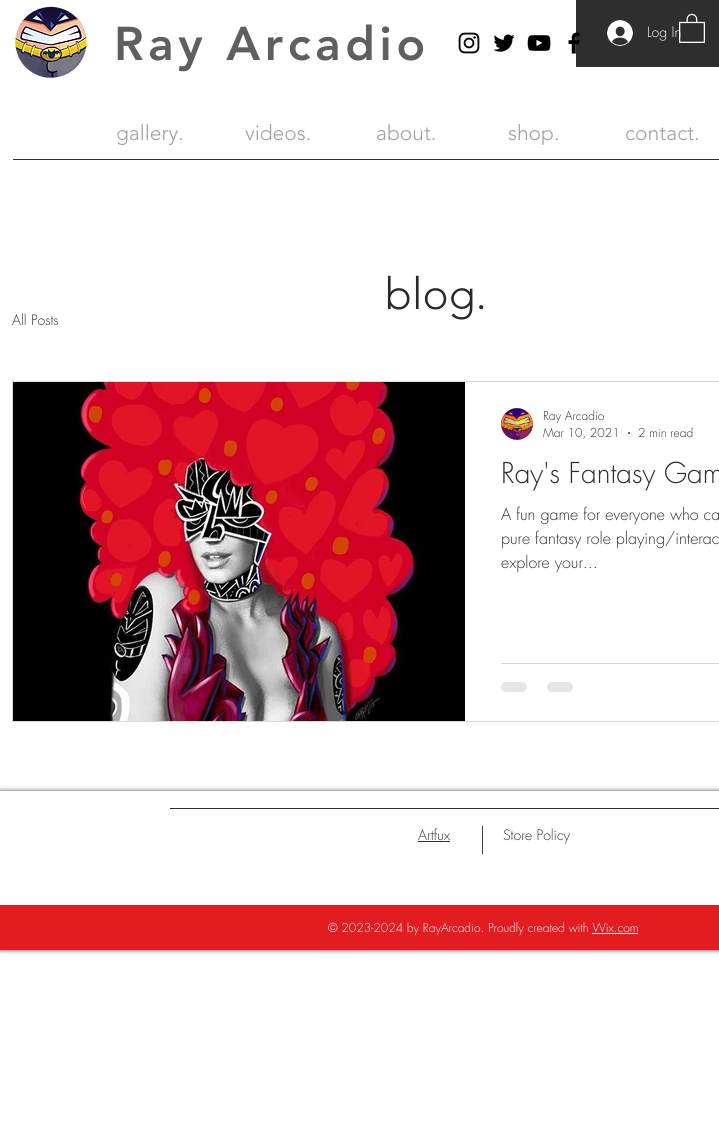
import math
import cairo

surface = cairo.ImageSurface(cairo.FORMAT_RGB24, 719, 1144)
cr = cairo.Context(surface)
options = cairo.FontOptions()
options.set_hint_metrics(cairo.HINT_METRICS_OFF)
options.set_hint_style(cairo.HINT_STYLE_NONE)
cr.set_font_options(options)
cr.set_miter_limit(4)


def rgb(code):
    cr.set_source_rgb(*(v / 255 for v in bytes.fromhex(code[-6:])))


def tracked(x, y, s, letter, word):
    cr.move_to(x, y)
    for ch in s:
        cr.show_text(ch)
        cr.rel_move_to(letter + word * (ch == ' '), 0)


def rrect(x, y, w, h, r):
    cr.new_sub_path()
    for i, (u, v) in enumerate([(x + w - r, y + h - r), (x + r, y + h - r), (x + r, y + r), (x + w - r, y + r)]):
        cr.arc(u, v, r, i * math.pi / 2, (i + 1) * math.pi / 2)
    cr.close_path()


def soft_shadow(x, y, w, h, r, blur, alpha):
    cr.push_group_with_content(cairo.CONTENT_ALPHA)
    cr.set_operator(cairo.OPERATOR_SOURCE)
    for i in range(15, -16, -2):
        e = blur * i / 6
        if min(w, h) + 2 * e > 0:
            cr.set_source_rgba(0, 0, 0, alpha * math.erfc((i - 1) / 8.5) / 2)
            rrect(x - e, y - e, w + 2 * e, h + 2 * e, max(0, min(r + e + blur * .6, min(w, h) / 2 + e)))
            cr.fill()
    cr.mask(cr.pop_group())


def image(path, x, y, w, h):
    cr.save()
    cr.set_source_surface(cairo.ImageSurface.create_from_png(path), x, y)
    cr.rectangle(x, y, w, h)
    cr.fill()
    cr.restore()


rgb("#ffffff")
cr.paint()
image("img/1.png", 15, 6, 72, 72)
image("img/2.png", 458, 32, 22, 22)
image("img/3.png", 493, 34, 22, 18)
image("img/4.png", 527, 35, 24, 16)
rgb("#2f2e2e")
cr.rectangle(576, 0, 143, 67)
cr.fill()
image("img/5.png", 568, 32, 12, 22)
cr.rectangle(13, 159, 706, 1)
cr.fill()
image("img/6.png", 607, 20, 26, 26)
cr.rectangle(12.5, 381.5, 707, 340)
rgb("#d9d9d9")
cr.set_line_width(1)
cr.stroke()
image("img/8.png", 13, 382, 452, 339)
image("img/9.png", 501, 408, 32, 32)
rgb("#2f2e2e")
cr.arc(629, 433, 1, 0, 2 * math.pi)
cr.fill()
rgb("#d5d5d5")
cr.rectangle(501, 663, 218, 1)
cr.fill()
rgb("#e6e6e6")
rrect(501, 682, 26, 10, 5)
cr.fill()
rrect(547, 682, 26, 10, 5)
cr.fill()
cr.save()
cr.set_fill_rule(cairo.FILL_RULE_EVEN_ODD)
cr.new_path()
cr.move_to(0, 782)
cr.line_to(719, 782)
cr.line_to(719, 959)
cr.line_to(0, 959)
cr.close_path()
cr.move_to(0, 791)
cr.line_to(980, 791)
cr.line_to(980, 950)
cr.line_to(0, 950)
cr.close_path()
cr.clip()
rgb("#000000")
soft_shadow(0, 791, 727, 159, 0, 2.5, 0.7)
cr.restore()
for x, y, w, h, color in [
    (170, 808, 549, 1, "#2f2e2e"),
    (418, 841, 32, 1, "#2f2e2e"),
    (482, 826, 1, 28, "#424242"),
    (0, 905, 719, 45, "#e21c21"),
    (592, 933, 46, 1, "#ffffff"),
]:
    rgb(color)
    cr.rectangle(x, y, w, h)
    cr.fill()
cr.select_font_face("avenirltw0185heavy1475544 Black")
cr.set_font_size(47)
rgb("#605e5e")
tracked(114, 60, "Ray Arcadio", 4.75, 0)
cr.select_font_face("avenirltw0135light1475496 Light")
cr.set_font_size(21)
rgb("#a0a09f")
for x, y, s in [
    (116, 140, "gallery."),
    (245, 140, "videos."),
    (376, 140, "about."),
    (508, 140, "shop."),
    (625, 140, "contact."),
]:
    cr.move_to(x, y)
    cr.show_text(s)
cr.select_font_face("futura Light")
cr.set_font_size(14)
rgb("#ffffff")
cr.move_to(647, 37)
cr.show_text("Log In")
image("img/7.png", 679, 13, 26, 30)
cr.select_font_face("avenirltw0135light1475496 Light")
cr.set_font_size(44)
rgb("#292929")
cr.move_to(385, 309)
cr.show_text("blog.")
cr.select_font_face("futura Light")
cr.set_font_size(14)
rgb("#2f2e2e")
cr.move_to(12, 325)
cr.show_text("All Posts")
cr.set_font_size(12)
for x, y, s in [
    (543, 420, "Ray Arcadio"),
    (543, 437, "Mar 10, 2021"),
    (638, 437, "2 min read"),
]:
    cr.move_to(x, y)
    cr.show_text(s)
cr.set_font_size(28)
cr.move_to(501, 483)
cr.show_text("Ray's Fantasy Gam")
cr.set_font_size(16)
for x, y, s in [
    (501, 520, "A fun game for everyone who ca"),
    (501, 544, "pure fantasy role playing/interac"),
    (501, 568, "explore your..."),
]:
    cr.move_to(x, y)
    cr.show_text(s)
cr.set_font_size(14)
cr.move_to(418, 840)
cr.show_text("Artfux")
cr.move_to(503, 840)
cr.show_text("Store Policy")
cr.set_font_size(12)
rgb("#ffffff")
cr.move_to(328, 932)
cr.show_text("© 2023-2024 by RayArcadio. Proudly created with Wix.com")
surface.write_to_png("page.png")
